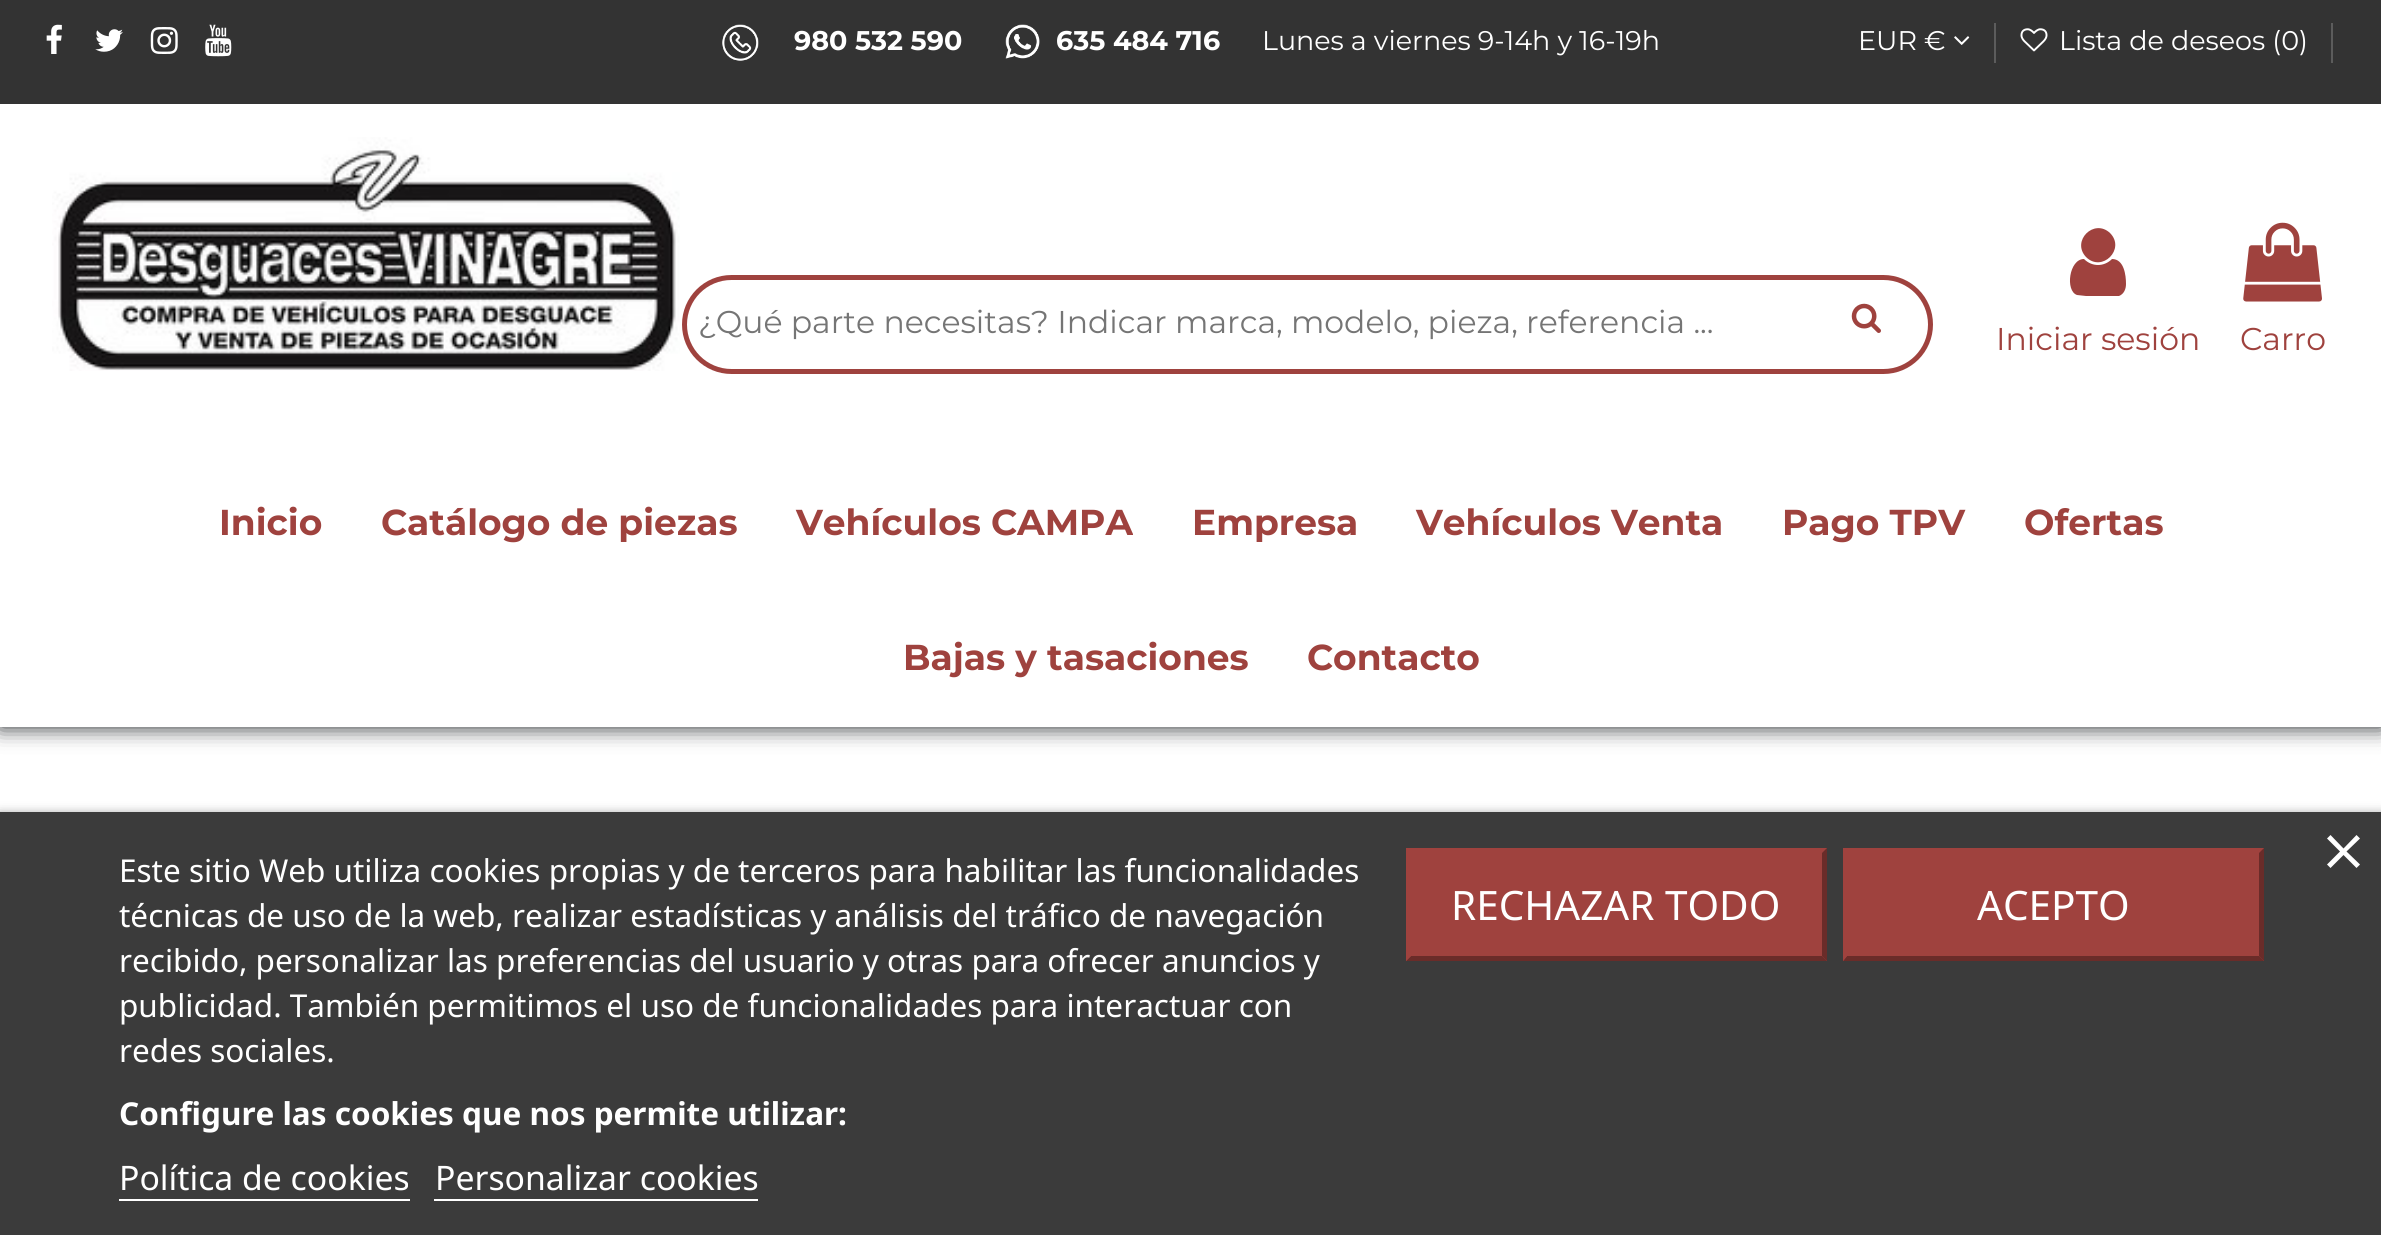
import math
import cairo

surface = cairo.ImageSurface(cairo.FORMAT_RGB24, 2381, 1235)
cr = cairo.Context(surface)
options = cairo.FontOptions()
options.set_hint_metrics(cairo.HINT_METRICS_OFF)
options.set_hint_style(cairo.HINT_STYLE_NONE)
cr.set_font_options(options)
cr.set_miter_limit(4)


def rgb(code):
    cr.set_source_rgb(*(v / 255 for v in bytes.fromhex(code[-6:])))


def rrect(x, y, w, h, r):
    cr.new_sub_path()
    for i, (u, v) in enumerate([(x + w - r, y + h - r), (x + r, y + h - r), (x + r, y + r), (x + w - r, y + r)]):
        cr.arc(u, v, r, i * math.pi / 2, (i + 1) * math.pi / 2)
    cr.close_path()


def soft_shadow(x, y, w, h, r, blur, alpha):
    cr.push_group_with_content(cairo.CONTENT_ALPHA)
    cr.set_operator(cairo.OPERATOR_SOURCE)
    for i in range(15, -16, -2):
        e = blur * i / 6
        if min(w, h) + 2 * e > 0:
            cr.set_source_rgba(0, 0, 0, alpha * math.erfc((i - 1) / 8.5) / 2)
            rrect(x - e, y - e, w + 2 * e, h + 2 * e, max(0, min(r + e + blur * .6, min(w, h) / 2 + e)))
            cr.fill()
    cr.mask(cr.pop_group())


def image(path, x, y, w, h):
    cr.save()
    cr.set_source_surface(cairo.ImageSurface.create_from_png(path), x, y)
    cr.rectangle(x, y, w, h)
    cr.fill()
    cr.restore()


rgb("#ffffff")
cr.paint()
cr.save()
cr.set_fill_rule(cairo.FILL_RULE_EVEN_ODD)
cr.new_path()
cr.move_to(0, 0)
cr.line_to(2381, 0)
cr.line_to(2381, 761)
cr.line_to(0, 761)
cr.close_path()
cr.move_to(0, 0)
cr.line_to(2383, 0)
cr.line_to(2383, 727)
cr.line_to(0, 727)
cr.close_path()
cr.clip()
rgb("#212529")
soft_shadow(0, 0, 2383, 727, 0, 11, 1)
cr.restore()
rgb("#333333")
cr.rectangle(0, 0, 2381, 104)
cr.fill()
image("img/1.png", 46, 24, 16, 30)
image("img/2.png", 95, 29, 28, 23)
image("img/3.png", 150, 27, 28, 27)
image("img/4.png", 205, 24, 27, 33)
image("img/5.png", 722, 24, 37, 37)
image("img/6.png", 1005, 24, 35, 35)
image("img/7.png", 1954, 36, 16, 9)
rgb("#5c5c5c")
cr.rectangle(1994, 23, 2, 40)
cr.fill()
image("img/8.png", 2020, 28, 28, 24)
cr.rectangle(2331, 23, 2, 40)
cr.fill()
image("img/9.png", 52, 137, 628, 234)
rrect(684.5, 277.5, 1246, 94, 47)
rgb("#9f423e")
cr.set_line_width(5)
cr.stroke()
image("img/10.png", 1851, 303, 30, 30)
cr.new_path()
cr.move_to(2126, 284)
cr.curve_to(2126, 289, 2124, 294, 2119, 296)
cr.line_to(2086, 296)
cr.line_to(2077, 295)
cr.curve_to(2065, 291, 2069, 259, 2084, 259)
cr.curve_to(2092, 267, 2104, 267, 2112, 259)
cr.curve_to(2124, 259, 2126, 275, 2126, 284)
cr.close_path()
cr.move_to(2110, 233)
cr.curve_to(2126, 249, 2102, 273, 2086, 257)
cr.curve_to(2071, 241, 2094, 218, 2110, 233)
cr.close_path()
cr.fill()
image("img/11.png", 2243, 222, 79, 80)
rgb("#ffffff")
cr.rectangle(873, 726, 637, 1)
cr.fill()
rgb("#707070")
soft_shadow(0, 815, 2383, 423, 0, 5.5, 1)
rgb("#3b3b3b")
cr.rectangle(0, 812, 2381, 423)
cr.fill()
rgb("#ffffff")
cr.new_path()
cr.move_to(2360, 838.5)
cr.line_to(2356.5, 835)
cr.line_to(2343.5, 848.5)
cr.line_to(2330.5, 835)
cr.line_to(2327, 838.5)
cr.line_to(2340, 851.5)
cr.line_to(2327, 864.5)
cr.line_to(2330.5, 868)
cr.line_to(2343.5, 855)
cr.line_to(2356.5, 868)
cr.line_to(2360, 864.5)
cr.line_to(2346.5, 851.5)
cr.close_path()
cr.fill()
for x, y, w, h, color in [
    (119, 1199, 291, 2, "#ffffff"),
    (434, 1199, 324, 2, "#ffffff"),
    (1406, 848, 421, 113, "#9f423e"),
]:
    rgb(color)
    cr.rectangle(x, y, w, h)
    cr.fill()
rgb("#6a2c29")
cr.new_path()
cr.move_to(1827, 848)
cr.line_to(1827, 961)
cr.line_to(1822, 956)
cr.line_to(1822, 853)
cr.close_path()
cr.fill()
cr.new_path()
cr.move_to(1827, 961)
cr.line_to(1406, 961)
cr.line_to(1411, 956)
cr.line_to(1822, 956)
cr.close_path()
cr.fill()
rgb("#9f423e")
cr.new_path()
cr.move_to(1406, 961)
cr.line_to(1406, 848)
cr.line_to(1411, 853)
cr.line_to(1411, 956)
cr.close_path()
cr.fill()
cr.rectangle(1843, 848, 421, 113)
cr.fill()
rgb("#6a2c29")
cr.new_path()
cr.move_to(2264, 848)
cr.line_to(2264, 961)
cr.line_to(2259, 956)
cr.line_to(2259, 853)
cr.close_path()
cr.fill()
cr.new_path()
cr.move_to(2264, 961)
cr.line_to(1843, 961)
cr.line_to(1847, 956)
cr.line_to(2259, 956)
cr.close_path()
cr.fill()
rgb("#9f423e")
cr.new_path()
cr.move_to(1843, 961)
cr.line_to(1843, 848)
cr.line_to(1847, 853)
cr.line_to(1847, 956)
cr.close_path()
cr.fill()
cr.select_font_face("Montserrat", cairo.FONT_SLANT_NORMAL, cairo.FONT_WEIGHT_BOLD)
cr.set_font_size(27)
rgb("#ffffff")
cr.move_to(794, 50)
cr.show_text("980 532 590")
cr.move_to(1056, 50)
cr.show_text("635 484 716")
cr.select_font_face("Montserrat Thin")
for x, y, s in [
    (1262, 50, "Lunes a viernes 9-14h y 16-19h"),
    (1858, 50, "EUR €"),
    (2059, 50, "Lista de deseos (0)"),
]:
    cr.move_to(x, y)
    cr.show_text(s)
cr.set_font_size(31.5)
rgb("#757575")
cr.move_to(698, 333)
cr.show_text("¿Qué parte necesitas? Indicar marca, modelo, pieza, referencia ...")
rgb("#9f423e")
cr.move_to(1996, 350)
cr.show_text("Iniciar sesión")
cr.move_to(2240, 350)
cr.show_text("Carro")
cr.select_font_face("Montserrat", cairo.FONT_SLANT_NORMAL, cairo.FONT_WEIGHT_BOLD)
cr.set_font_size(36)
for x, y, s in [
    (219, 535, "Inicio"),
    (381, 535, "Catálogo de piezas"),
    (796, 535, "Vehículos CAMPA"),
    (1192, 535, "Empresa"),
    (1416, 535, "Vehículos Venta"),
    (1782, 535, "Pago TPV"),
    (2024, 535, "Ofertas"),
    (903, 670, "Bajas y tasaciones"),
    (1307, 670, "Contacto"),
]:
    cr.move_to(x, y)
    cr.show_text(s)
cr.select_font_face("Noto Sans")
cr.set_font_size(31.5)
rgb("#ffffff")
for x, y, s in [
    (119, 882, "Este sitio Web utiliza cookies propias y de terceros para habilitar las funcionalidades"),
    (119, 927, "técnicas de uso de la web, realizar estadísticas y análisis del tráfico de navegación"),
    (119, 972, "recibido, personalizar las preferencias del usuario y otras para ofrecer anuncios y"),
    (119, 1017, "publicidad. También permitimos el uso de funcionalidades para interactuar con"),
    (119, 1062, "redes sociales."),
]:
    cr.move_to(x, y)
    cr.show_text(s)
cr.select_font_face("Noto Sans", cairo.FONT_SLANT_NORMAL, cairo.FONT_WEIGHT_BOLD)
cr.move_to(119, 1125)
cr.show_text("Configure las cookies que nos permite utilizar:")
cr.select_font_face("Noto Sans")
cr.set_font_size(33.75)
cr.move_to(119, 1190)
cr.show_text("Política de cookies")
cr.move_to(435, 1190)
cr.show_text("Personalizar cookies")
cr.set_font_size(40.5)
cr.move_to(1451, 920)
cr.show_text("RECHAZAR TODO")
cr.move_to(1977, 920)
cr.show_text("ACEPTO")
surface.write_to_png("page.png")
